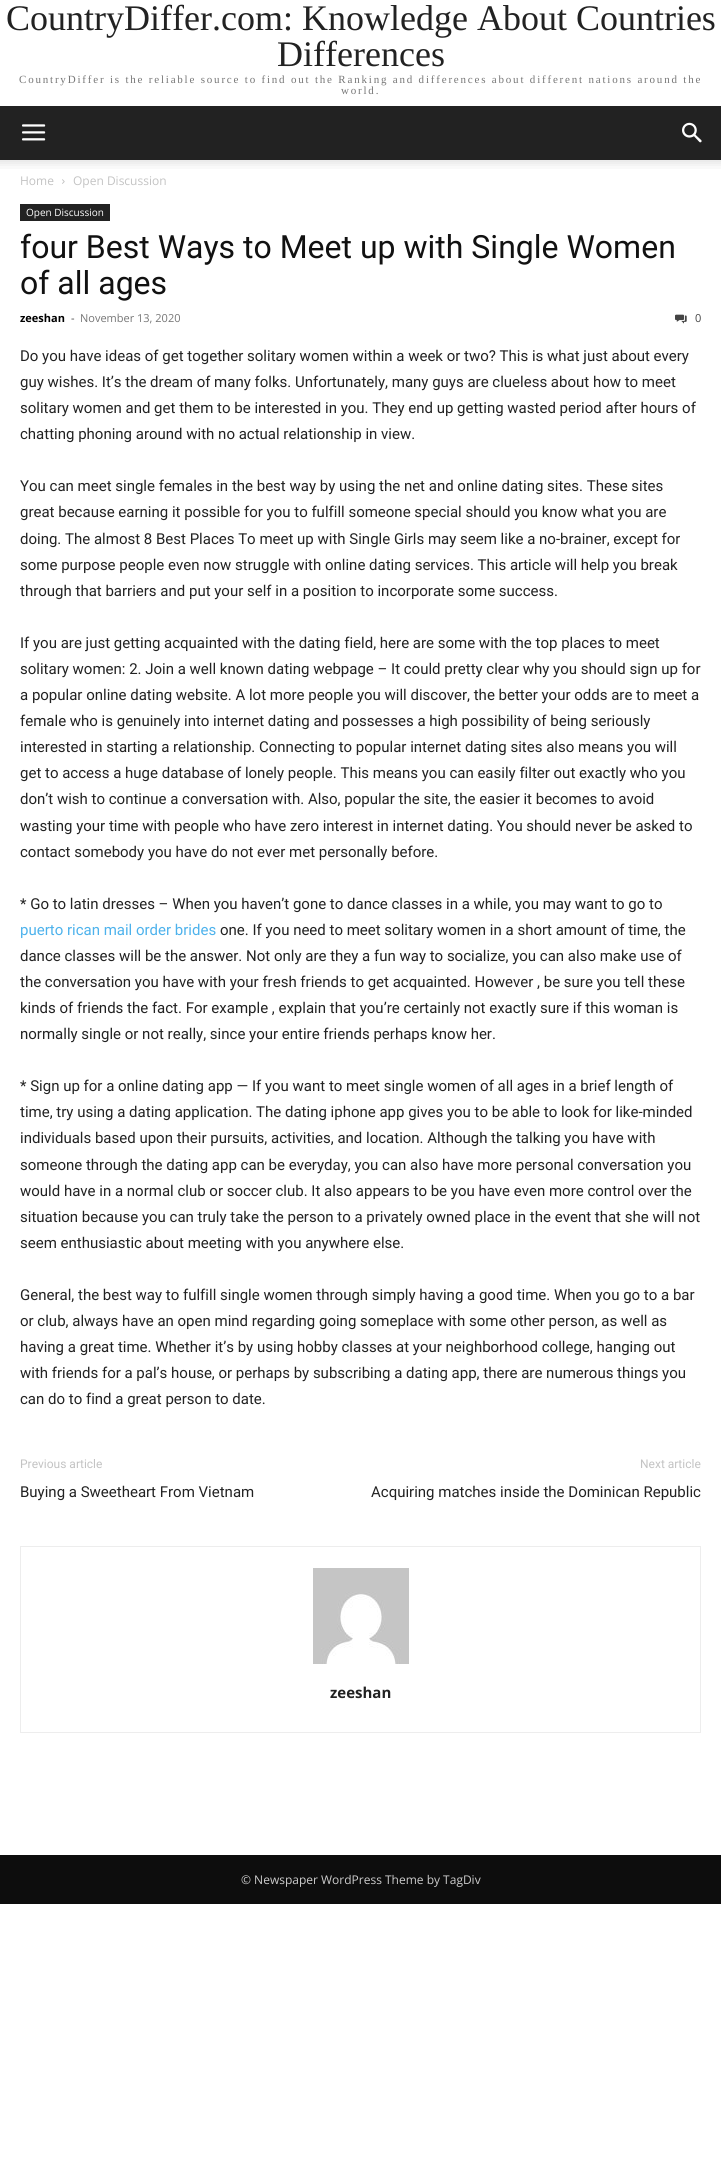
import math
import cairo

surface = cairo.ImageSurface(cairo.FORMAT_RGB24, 721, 2181)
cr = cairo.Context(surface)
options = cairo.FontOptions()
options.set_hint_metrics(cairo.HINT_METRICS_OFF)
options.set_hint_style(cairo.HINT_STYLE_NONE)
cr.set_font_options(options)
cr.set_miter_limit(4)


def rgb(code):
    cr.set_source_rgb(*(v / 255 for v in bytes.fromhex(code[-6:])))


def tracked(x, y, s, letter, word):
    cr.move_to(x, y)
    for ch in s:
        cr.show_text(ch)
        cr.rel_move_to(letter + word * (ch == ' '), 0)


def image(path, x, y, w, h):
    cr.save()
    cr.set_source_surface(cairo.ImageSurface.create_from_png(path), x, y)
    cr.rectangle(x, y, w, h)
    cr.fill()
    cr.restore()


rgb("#ffffff")
cr.paint()
rgb("#222222")
cr.rectangle(0, 106, 721, 54)
cr.fill()
image("img/1.png", 22, 124, 24, 17)
image("img/2.png", 682, 122, 20, 21)
image("img/3.png", 0, 160, 721, 9)
image("img/4.png", 62, 179, 3, 5)
cr.rectangle(20, 204, 90, 17)
cr.fill()
image("img/5.png", 675, 314, 12, 10)
cr.rectangle(20.5, 1546.5, 680, 186)
rgb("#ededed")
cr.set_line_width(1)
cr.stroke()
image("img/6.png", 313, 1568, 96, 96)
rgb("#0d0d0d")
cr.rectangle(0, 1855, 721, 49)
cr.fill()
cr.select_font_face("Liberation Serif")
cr.set_font_size(36)
rgb("#222222")
cr.move_to(6, 30)
cr.show_text("CountryDiffer.com: Knowledge About Countries")
cr.move_to(277, 66)
cr.show_text("Differences")
cr.set_font_size(11)
rgb("#767676")
tracked(19, 83, "CountryDiffer is the reliable source to find out the Ranking and differences about different nations around the", 1.8, 0)
tracked(341, 94, "world.", 1.8, 0)
cr.select_font_face("Open Sans")
cr.set_font_size(12)
rgb("#c3c3c3")
cr.move_to(20, 185)
cr.show_text("Home")
cr.move_to(73, 185)
cr.show_text("Open Discussion")
cr.set_font_size(10)
rgb("#ffffff")
cr.move_to(26, 216)
cr.show_text("Open Discussion")
cr.select_font_face("Roboto")
cr.set_font_size(32)
rgb("#111111")
cr.move_to(20, 258)
cr.show_text("four Best Ways to Meet up with Single Women")
cr.move_to(20, 294)
cr.show_text("of all ages")
cr.select_font_face("Open Sans", cairo.FONT_SLANT_NORMAL, cairo.FONT_WEIGHT_BOLD)
cr.set_font_size(11)
rgb("#000000")
cr.move_to(20, 322)
cr.show_text("zeeshan")
cr.select_font_face("Open Sans")
rgb("#444444")
cr.move_to(71, 322)
cr.show_text("-")
rgb("#767676")
cr.move_to(80, 322)
cr.show_text("November 13, 2020")
rgb("#444444")
cr.move_to(695, 322)
cr.show_text("0")
cr.select_font_face("Roboto")
cr.set_font_size(15)
rgb("#222222")
for x, y, s in [
    (20, 361, "Do you have ideas of get together solitary women within a week or two? This is what just about every"),
    (20, 387, "guy wishes. It’s the dream of many folks. Unfortunately, many guys are clueless about how to meet"),
    (20, 413, "solitary women and get them to be interested in you. They end up getting wasted period after hours of"),
    (20, 439, "chatting phoning around with no actual relationship in view."),
    (20, 491, "You can meet single females in the best way by using the net and online dating sites. These sites"),
    (20, 517, "great because earning it possible for you to fulfill someone special should you know what you are"),
    (20, 544, "doing. The almost 8 Best Places To meet up with Single Girls may seem like a no-brainer, except for"),
    (20, 570, "some purpose people even now struggle with online dating services. This article will help you break"),
    (20, 596, "through that barriers and put your self in a position to incorporate some success."),
    (20, 648, "If you are just getting acquainted with the dating field, here are some with the top places to meet"),
    (20, 674, "solitary women: 2. Join a well known dating webpage – It could pretty clear why you should sign up for"),
    (20, 700, "a popular online dating website. A lot more people you will discover, the better your odds are to meet a"),
    (20, 726, "female who is genuinely into internet dating and possesses a high possibility of being seriously"),
    (20, 752, "interested in starting a relationship. Connecting to popular internet dating sites also means you will"),
    (20, 778, "get to access a huge database of lonely people. This means you can easily filter out exactly who you"),
    (20, 804, "don’t wish to continue a conversation with. Also, popular the site, the easier it becomes to avoid"),
    (20, 831, "wasting your time with people who have zero interest in internet dating. You should never be asked to"),
    (20, 857, "contact somebody you have do not ever met personally before."),
    (20, 909, "* Go to latin dresses – When you haven’t gone to dance classes in a while, you may want to go to"),
]:
    cr.move_to(x, y)
    cr.show_text(s)
rgb("#4db2ec")
cr.move_to(20, 935)
cr.show_text("puerto rican mail order brides")
rgb("#222222")
for x, y, s in [
    (220, 935, "one. If you need to meet solitary women in a short amount of time, the"),
    (20, 961, "dance classes will be the answer. Not only are they a fun way to socialize, you can also make use of"),
    (20, 987, "the conversation you have with your fresh friends to get acquainted. However , be sure you tell these"),
    (20, 1013, "kinds of friends the fact. For example , explain that you’re certainly not exactly sure if this woman is"),
    (20, 1039, "normally single or not really, since your entire friends perhaps know her."),
    (20, 1091, "* Sign up for a online dating app — If you want to meet single women of all ages in a brief length of"),
    (20, 1117, "time, try using a dating application. The dating iphone app gives you to be able to look for like-minded"),
    (20, 1143, "individuals based upon their pursuits, activities, and location. Although the talking you have with"),
    (20, 1170, "someone through the dating app can be everyday, you can also have more personal conversation you"),
    (20, 1196, "would have in a normal club or soccer club. It also appears to be you have even more control over the"),
    (20, 1222, "situation because you can truly take the person to a privately owned place in the event that she will not"),
    (20, 1248, "seem enthusiastic about meeting with you anywhere else."),
    (20, 1300, "General, the best way to fulfill single women through simply having a good time. When you go to a bar"),
    (20, 1326, "or club, always have an open mind regarding going someplace with some other person, as well as"),
    (20, 1352, "having a great time. Whether it’s by using hobby classes at your neighborhood college, hanging out"),
    (20, 1378, "with friends for a pal’s house, or perhaps by subscribing a dating app, there are numerous things you"),
    (20, 1404, "can do to find a great person to date."),
]:
    cr.move_to(x, y)
    cr.show_text(s)
cr.set_font_size(12)
rgb("#c3c3c3")
cr.move_to(20, 1468)
cr.show_text("Previous article")
cr.set_font_size(15)
rgb("#222222")
cr.move_to(20, 1497)
cr.show_text("Buying a Sweetheart From Vietnam")
cr.set_font_size(12)
rgb("#c3c3c3")
cr.move_to(640, 1468)
cr.show_text("Next article")
cr.set_font_size(15)
rgb("#222222")
cr.move_to(371, 1497)
cr.show_text("Acquiring matches inside the Dominican Republic")
cr.select_font_face("Open Sans", cairo.FONT_SLANT_NORMAL, cairo.FONT_WEIGHT_BOLD)
cr.move_to(330, 1698)
cr.show_text("zeeshan")
cr.select_font_face("Open Sans")
cr.set_font_size(12)
rgb("#cccccc")
cr.move_to(241, 1884)
cr.show_text("© Newspaper WordPress Theme by TagDiv")
surface.write_to_png("page.png")
